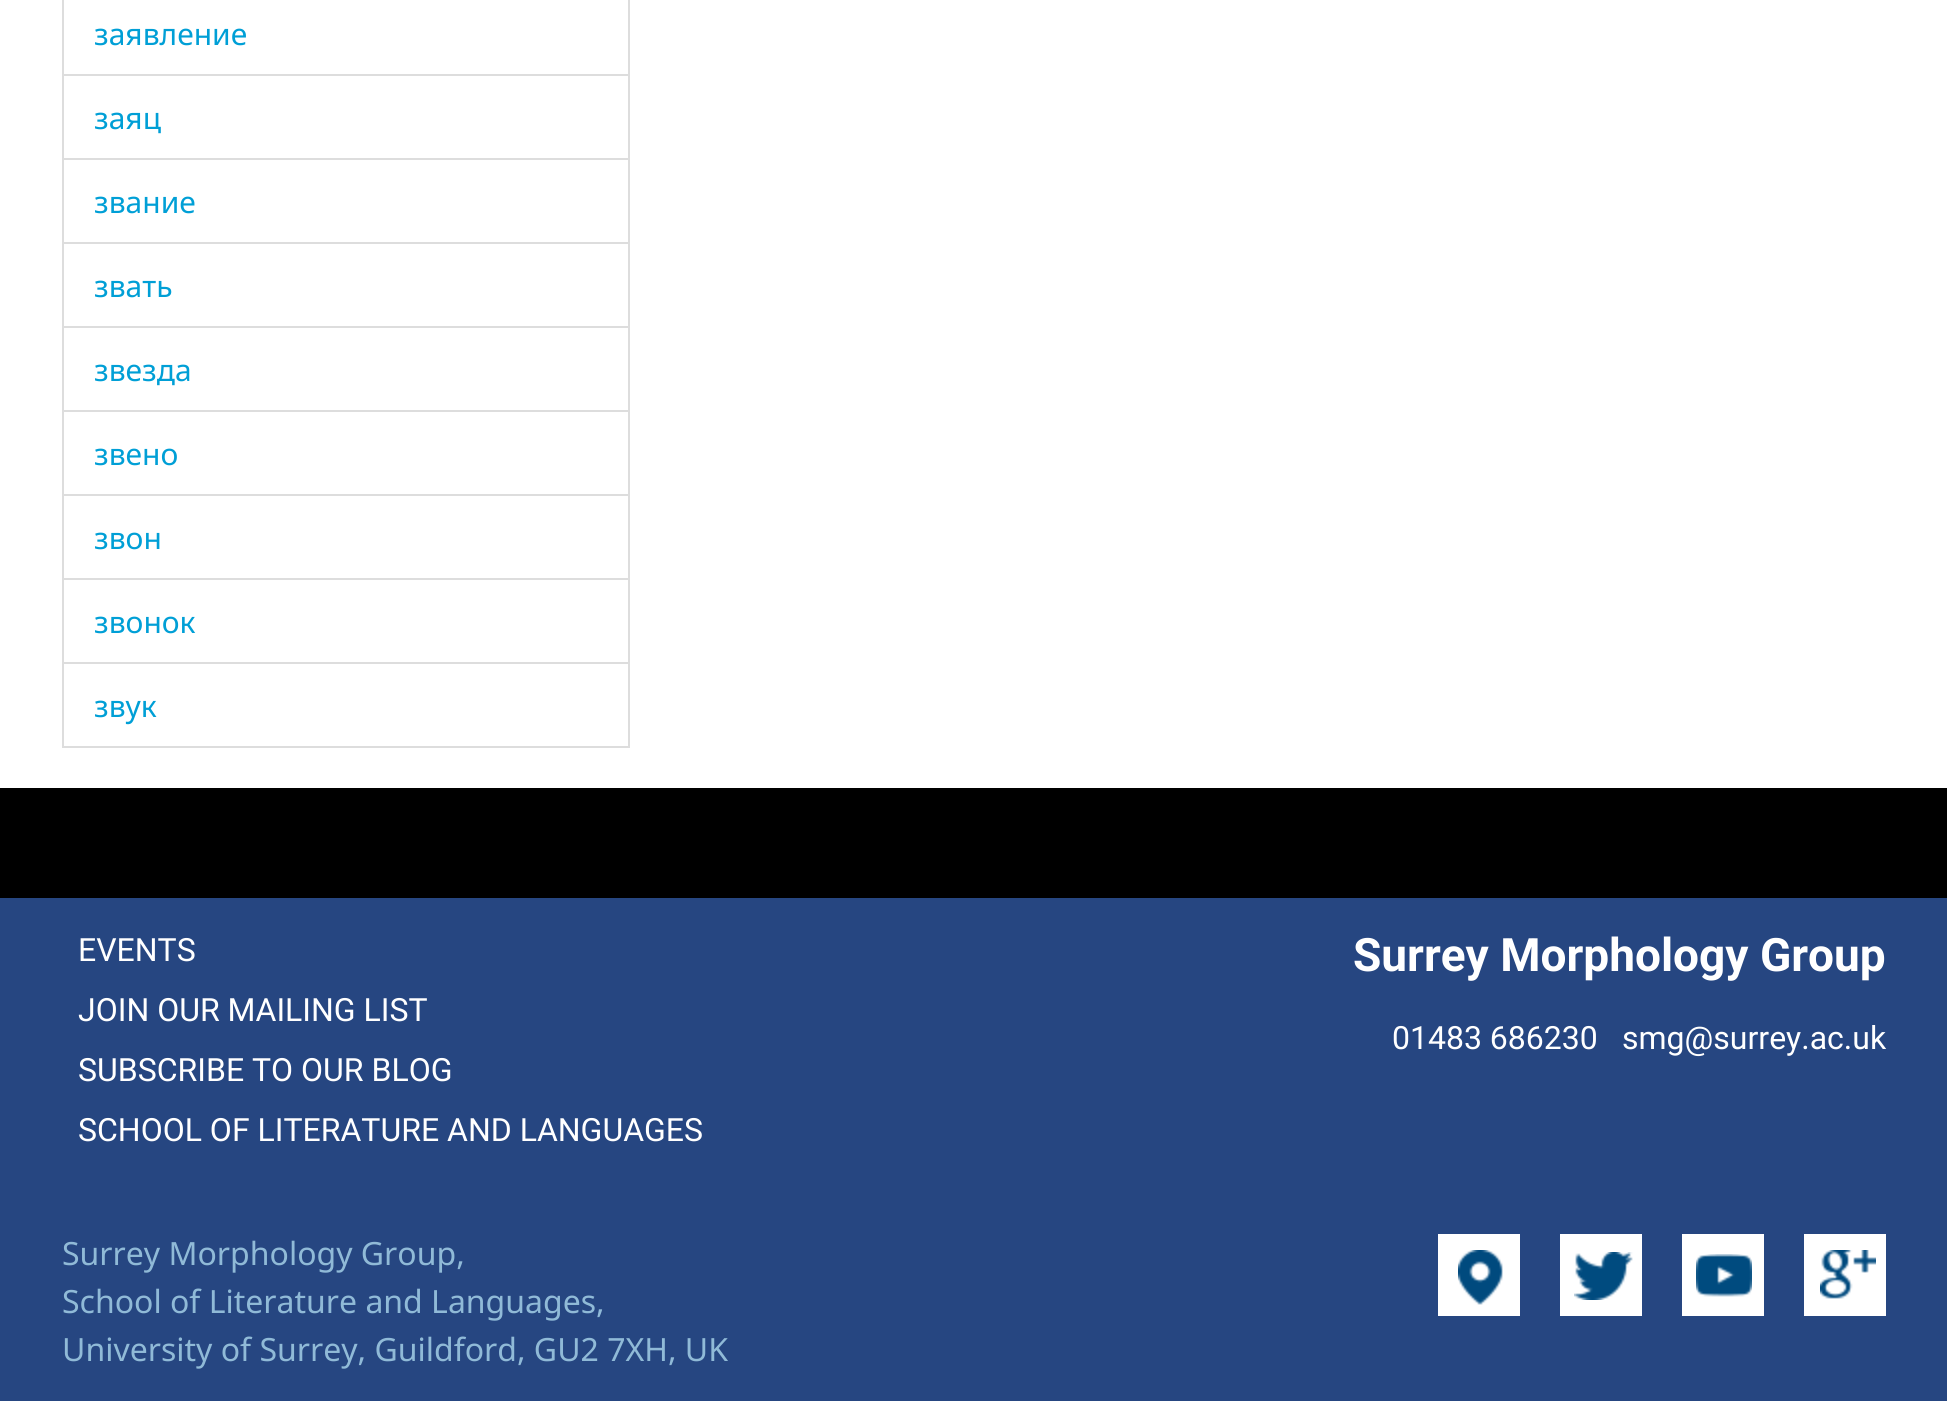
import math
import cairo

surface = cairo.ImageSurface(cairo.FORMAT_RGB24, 1947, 1401)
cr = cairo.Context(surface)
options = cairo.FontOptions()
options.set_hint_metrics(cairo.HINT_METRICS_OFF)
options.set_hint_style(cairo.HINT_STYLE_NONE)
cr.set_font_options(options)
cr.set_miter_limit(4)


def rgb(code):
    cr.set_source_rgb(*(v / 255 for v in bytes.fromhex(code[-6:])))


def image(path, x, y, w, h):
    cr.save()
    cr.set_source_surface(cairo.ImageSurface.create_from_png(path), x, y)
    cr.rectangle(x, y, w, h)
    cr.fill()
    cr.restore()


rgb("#ffffff")
cr.paint()
cr.rectangle(63, -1, 566, 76)
rgb("#dddddd")
cr.stroke()
cr.rectangle(63, 75, 566, 84)
cr.stroke()
cr.rectangle(63, 159, 566, 84)
cr.stroke()
cr.rectangle(63, 243, 566, 84)
cr.stroke()
cr.rectangle(63, 327, 566, 84)
cr.stroke()
cr.rectangle(63, 411, 566, 84)
cr.stroke()
cr.rectangle(63, 495, 566, 84)
cr.stroke()
cr.rectangle(63, 579, 566, 84)
cr.stroke()
cr.rectangle(63, 663, 566, 84)
cr.stroke()
for x, y, w, h, color in [
    (0, 788, 1947, 110, "#000000"),
    (0, 898, 1947, 503, "#264681"),
    (1438, 1234, 82, 82, "#ffffff"),
]:
    rgb(color)
    cr.rectangle(x, y, w, h)
    cr.fill()
image("img/1.png", 1458, 1250, 45, 55)
cr.rectangle(1560, 1234, 82, 82)
cr.fill()
image("img/2.png", 1574, 1252, 59, 48)
cr.rectangle(1682, 1234, 82, 82)
cr.fill()
image("img/3.png", 1696, 1254, 56, 43)
cr.rectangle(1804, 1234, 82, 82)
cr.fill()
image("img/4.png", 1820, 1250, 56, 49)
cr.select_font_face("Noto Sans")
cr.set_font_size(30)
rgb("#009fd6")
for x, y, s in [
    (94, 45, "заявление"),
    (94, 129, "заяц"),
    (94, 213, "звание"),
    (94, 297, "звать"),
    (94, 381, "звезда"),
    (94, 465, "звено"),
    (94, 549, "звон"),
    (94, 633, "звонок"),
    (94, 717, "звук"),
]:
    cr.move_to(x, y)
    cr.show_text(s)
cr.select_font_face("Roboto")
cr.set_font_size(32)
rgb("#ffffff")
for x, y, s in [
    (78, 961, "EVENTS"),
    (78, 1021, "JOIN OUR MAILING LIST"),
    (78, 1081, "SUBSCRIBE TO OUR BLOG"),
    (78, 1141, "SCHOOL OF LITERATURE AND LANGUAGES"),
]:
    cr.move_to(x, y)
    cr.show_text(s)
cr.select_font_face("Roboto", cairo.FONT_SLANT_NORMAL, cairo.FONT_WEIGHT_BOLD)
cr.set_font_size(46)
cr.move_to(1353, 971)
cr.show_text("Surrey Morphology Group")
cr.select_font_face("Roboto")
cr.set_font_size(32)
cr.move_to(1392, 1049)
cr.show_text("01483 686230")
cr.move_to(1622, 1049)
cr.show_text("smg@surrey.ac.uk")
cr.select_font_face("Noto Sans")
rgb("#90bad7")
for x, y, s in [
    (62, 1265, "Surrey Morphology Group,"),
    (62, 1313, "School of Literature and Languages,"),
    (62, 1361, "University of Surrey, Guildford, GU2 7XH, UK"),
]:
    cr.move_to(x, y)
    cr.show_text(s)
surface.write_to_png("page.png")
